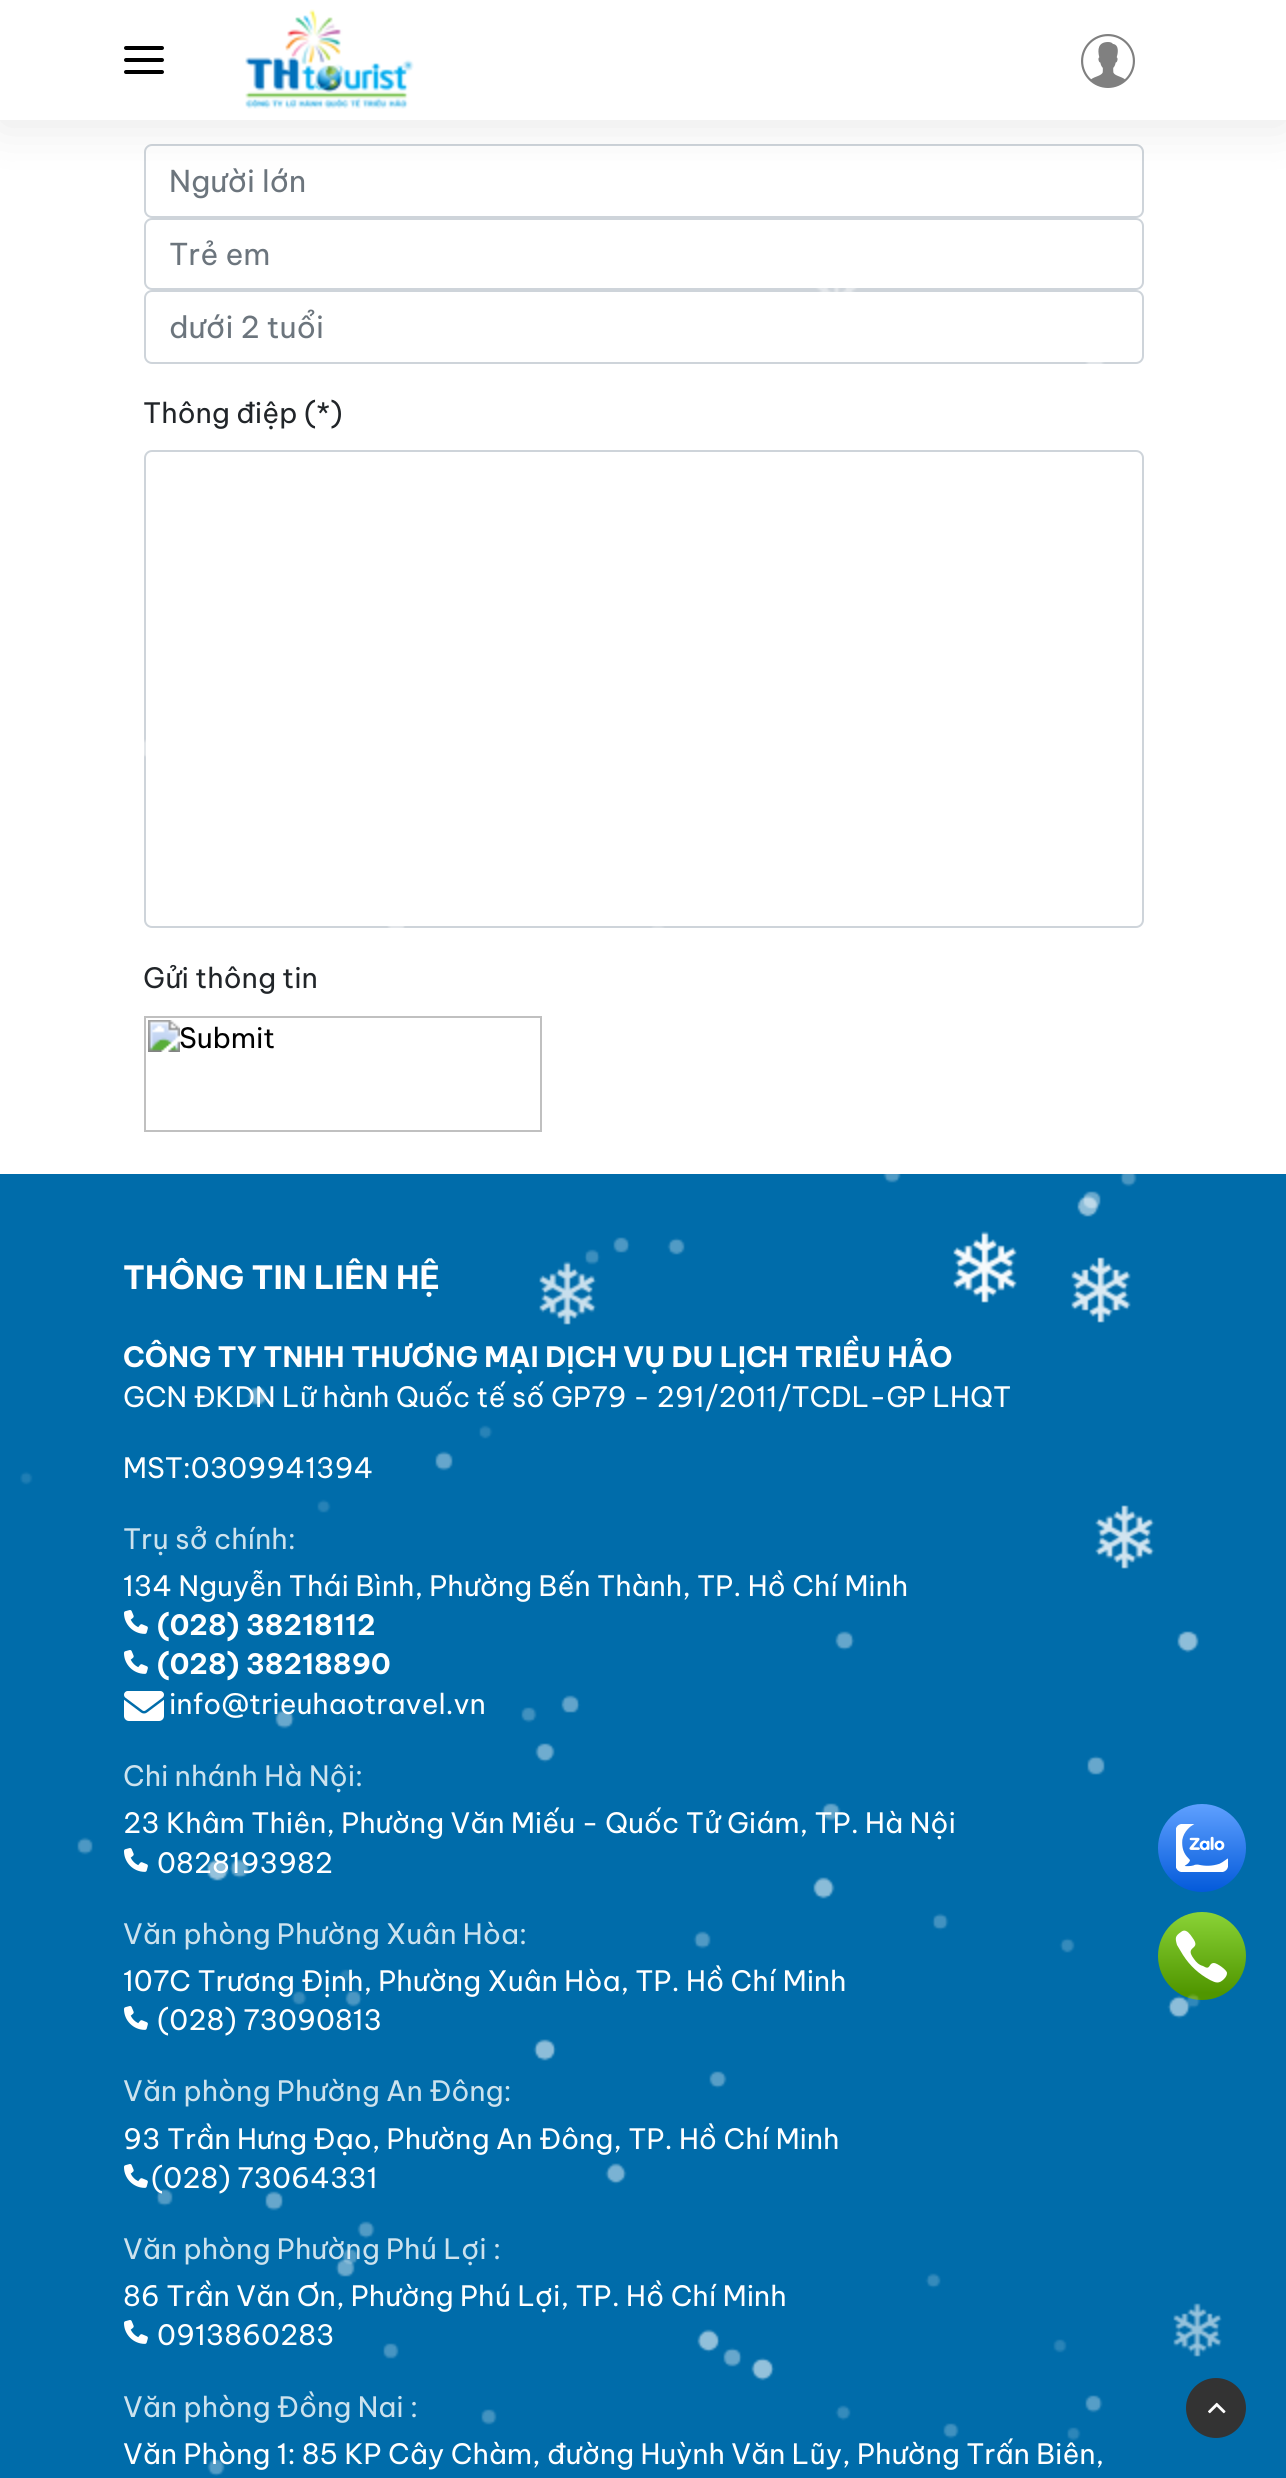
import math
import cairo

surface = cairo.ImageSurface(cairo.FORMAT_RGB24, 1286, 2478)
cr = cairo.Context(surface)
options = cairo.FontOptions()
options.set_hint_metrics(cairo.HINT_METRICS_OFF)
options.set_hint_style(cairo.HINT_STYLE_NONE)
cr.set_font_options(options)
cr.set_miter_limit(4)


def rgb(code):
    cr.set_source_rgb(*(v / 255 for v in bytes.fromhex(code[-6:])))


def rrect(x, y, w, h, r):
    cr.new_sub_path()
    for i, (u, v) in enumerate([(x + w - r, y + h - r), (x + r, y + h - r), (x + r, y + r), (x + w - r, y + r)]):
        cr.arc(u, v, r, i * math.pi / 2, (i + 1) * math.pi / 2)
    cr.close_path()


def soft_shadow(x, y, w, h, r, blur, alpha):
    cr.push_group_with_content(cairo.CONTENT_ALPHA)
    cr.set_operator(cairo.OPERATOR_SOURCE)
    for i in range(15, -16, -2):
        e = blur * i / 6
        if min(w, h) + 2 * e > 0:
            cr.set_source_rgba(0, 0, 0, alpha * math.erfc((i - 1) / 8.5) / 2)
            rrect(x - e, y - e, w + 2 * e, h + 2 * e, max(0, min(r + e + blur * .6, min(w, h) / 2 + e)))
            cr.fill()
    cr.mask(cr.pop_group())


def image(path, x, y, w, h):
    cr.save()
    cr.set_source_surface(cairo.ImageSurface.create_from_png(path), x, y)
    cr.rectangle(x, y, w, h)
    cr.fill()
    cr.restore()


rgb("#ffffff")
cr.paint()
rrect(145, 145, 998, 72, 7)
rgb("#ced4da")
cr.stroke()
rgb("#000000")
soft_shadow(0, 4, 1286, 120, 0, 25, 0.1)
rgb("#ffffff")
cr.rectangle(0, 0, 1286, 120)
cr.fill()
rgb("#000000")
rrect(124, 46, 40, 4, 2)
cr.fill()
rrect(124, 58, 40, 4, 2)
cr.fill()
rrect(124, 70, 40, 4, 2)
cr.fill()
image("img/1.png", 245, 9, 169, 100)
image("img/2.png", 1081, 34, 54, 54)
rrect(145, 219, 998, 70, 7)
rgb("#ced4da")
cr.stroke()
rrect(145, 291, 998, 72, 7)
cr.stroke()
rrect(145, 451, 998, 476, 7)
cr.stroke()
image("img/3.png", 144, 1016, 398, 116)
rgb("#006caa")
cr.rectangle(0, 1174, 1286, 1304)
cr.fill()
image("img/4.png", 124, 1610, 24, 24)
image("img/4.png", 124, 1650, 24, 24)
image("img/5.png", 124, 1691, 40, 30)
image("img/4.png", 124, 1848, 24, 24)
image("img/4.png", 124, 2006, 24, 24)
image("img/4.png", 124, 2164, 24, 24)
image("img/4.png", 124, 2320, 24, 24)
rgb("#333333")
cr.arc(1216, 2408, 30, 0, 2 * math.pi)
cr.fill()
image("img/6.png", 1208, 2402, 18, 12)
image("img/8.png", 1158, 1804, 88, 88)
gradient = cairo.LinearGradient(1202, 1912, 1202, 1993)
gradient.add_color_stop_rgba(0, 0.541, 0.827, 0.212, 1)
gradient.add_color_stop_rgba(1, 0.314, 0.588, 0, 1)
cr.set_source(gradient)
cr.arc(1202, 1956, 44, 0, 2 * math.pi)
cr.fill()
rgb("#ffffff")
cr.set_fill_rule(cairo.FILL_RULE_EVEN_ODD)
cr.new_path()
cr.move_to(1186, 1931)
cr.curve_to(1189, 1932, 1192, 1937, 1194, 1940)
cr.curve_to(1200, 1950, 1184, 1946, 1194, 1959)
cr.curve_to(1196, 1962, 1199, 1965, 1203, 1966)
cr.curve_to(1211, 1971, 1208, 1963, 1214, 1963)
cr.curve_to(1217, 1963, 1227, 1970, 1227, 1973)
cr.curve_to(1227, 1975, 1226, 1977, 1224, 1979)
cr.curve_to(1219, 1984, 1216, 1983, 1210, 1980)
cr.curve_to(1199, 1974, 1190, 1966, 1183, 1955)
cr.line_to(1177, 1945)
cr.curve_to(1175, 1938, 1175, 1936, 1181, 1932)
cr.curve_to(1182, 1931, 1184, 1930, 1186, 1931)
cr.close_path()
cr.fill()
cr.select_font_face("Be Vietnam Pro")
cr.set_font_size(30)
rgb("#6c757d")
for x, y, s in [
    (169, 192, "Người lớn"),
    (169, 265, "Trẻ em"),
    (169, 338, "dưới 2 tuổi"),
]:
    cr.move_to(x, y)
    cr.show_text(s)
cr.set_font_size(28)
rgb("#212529")
cr.move_to(143, 423)
cr.show_text("Thông điệp (*)")
cr.move_to(143, 988)
cr.show_text("Gửi thông tin")
cr.select_font_face("Be Vietnam Pro", cairo.FONT_SLANT_NORMAL, cairo.FONT_WEIGHT_BOLD)
cr.set_font_size(32)
rgb("#ffffff")
cr.move_to(123, 1289)
cr.show_text("THÔNG TIN LIÊN HỆ")
cr.set_font_size(28)
cr.move_to(123, 1367)
cr.show_text("CÔNG TY TNHH THƯƠNG MẠI DỊCH VỤ DU LỊCH TRIỀU HẢO")
cr.select_font_face("Be Vietnam Pro")
cr.move_to(123, 1407)
cr.show_text("GCN ĐKDN Lữ hành Quốc tế số GP79 - 291/2011/TCDL-GP LHQT")
cr.move_to(123, 1478)
cr.show_text("MST:0309941394")
rgb("#cce2ee")
cr.move_to(123, 1549)
cr.show_text("Trụ sở chính:")
rgb("#ffffff")
cr.move_to(123, 1596)
cr.show_text("134 Nguyễn Thái Bình, Phường Bến Thành, TP. Hồ Chí Minh")
cr.select_font_face("Be Vietnam Pro", cairo.FONT_SLANT_NORMAL, cairo.FONT_WEIGHT_BOLD)
cr.move_to(157, 1635)
cr.show_text("(028) 38218112")
cr.move_to(157, 1674)
cr.show_text("(028) 38218890")
cr.select_font_face("Be Vietnam Pro")
cr.move_to(169, 1714)
cr.show_text("info@trieuhaotravel.vn")
rgb("#cce2ee")
cr.move_to(123, 1786)
cr.show_text("Chi nhánh Hà Nội:")
rgb("#ffffff")
cr.move_to(123, 1833)
cr.show_text("23 Khâm Thiên, Phường Văn Miếu - Quốc Tử Giám, TP. Hà Nội")
cr.move_to(157, 1873)
cr.show_text("0828193982")
rgb("#cce2ee")
cr.move_to(123, 1944)
cr.show_text("Văn phòng Phường Xuân Hòa:")
rgb("#ffffff")
cr.move_to(123, 1991)
cr.show_text("107C Trương Định, Phường Xuân Hòa, TP. Hồ Chí Minh")
cr.move_to(157, 2030)
cr.show_text("(028) 73090813")
rgb("#cce2ee")
cr.move_to(123, 2101)
cr.show_text("Văn phòng Phường An Đông:")
rgb("#ffffff")
cr.move_to(123, 2149)
cr.show_text("93 Trần Hưng Đạo, Phường An Đông, TP. Hồ Chí Minh")
cr.move_to(151, 2188)
cr.show_text("(028) 73064331")
rgb("#cce2ee")
cr.move_to(123, 2259)
cr.show_text("Văn phòng Phường Phú Lợi :")
rgb("#ffffff")
cr.move_to(123, 2306)
cr.show_text("86 Trần Văn Ơn, Phường Phú Lợi, TP. Hồ Chí Minh")
cr.move_to(157, 2345)
cr.show_text("0913860283")
rgb("#cce2ee")
cr.move_to(123, 2417)
cr.show_text("Văn phòng Đồng Nai :")
rgb("#ffffff")
cr.move_to(123, 2464)
cr.show_text("Văn Phòng 1: 85 KP Cây Chàm, đường Huỳnh Văn Lũy, Phường Trấn Biên,")
image("img/7.png", 20, 288, 1202, 2188)
surface.write_to_png("page.png")
